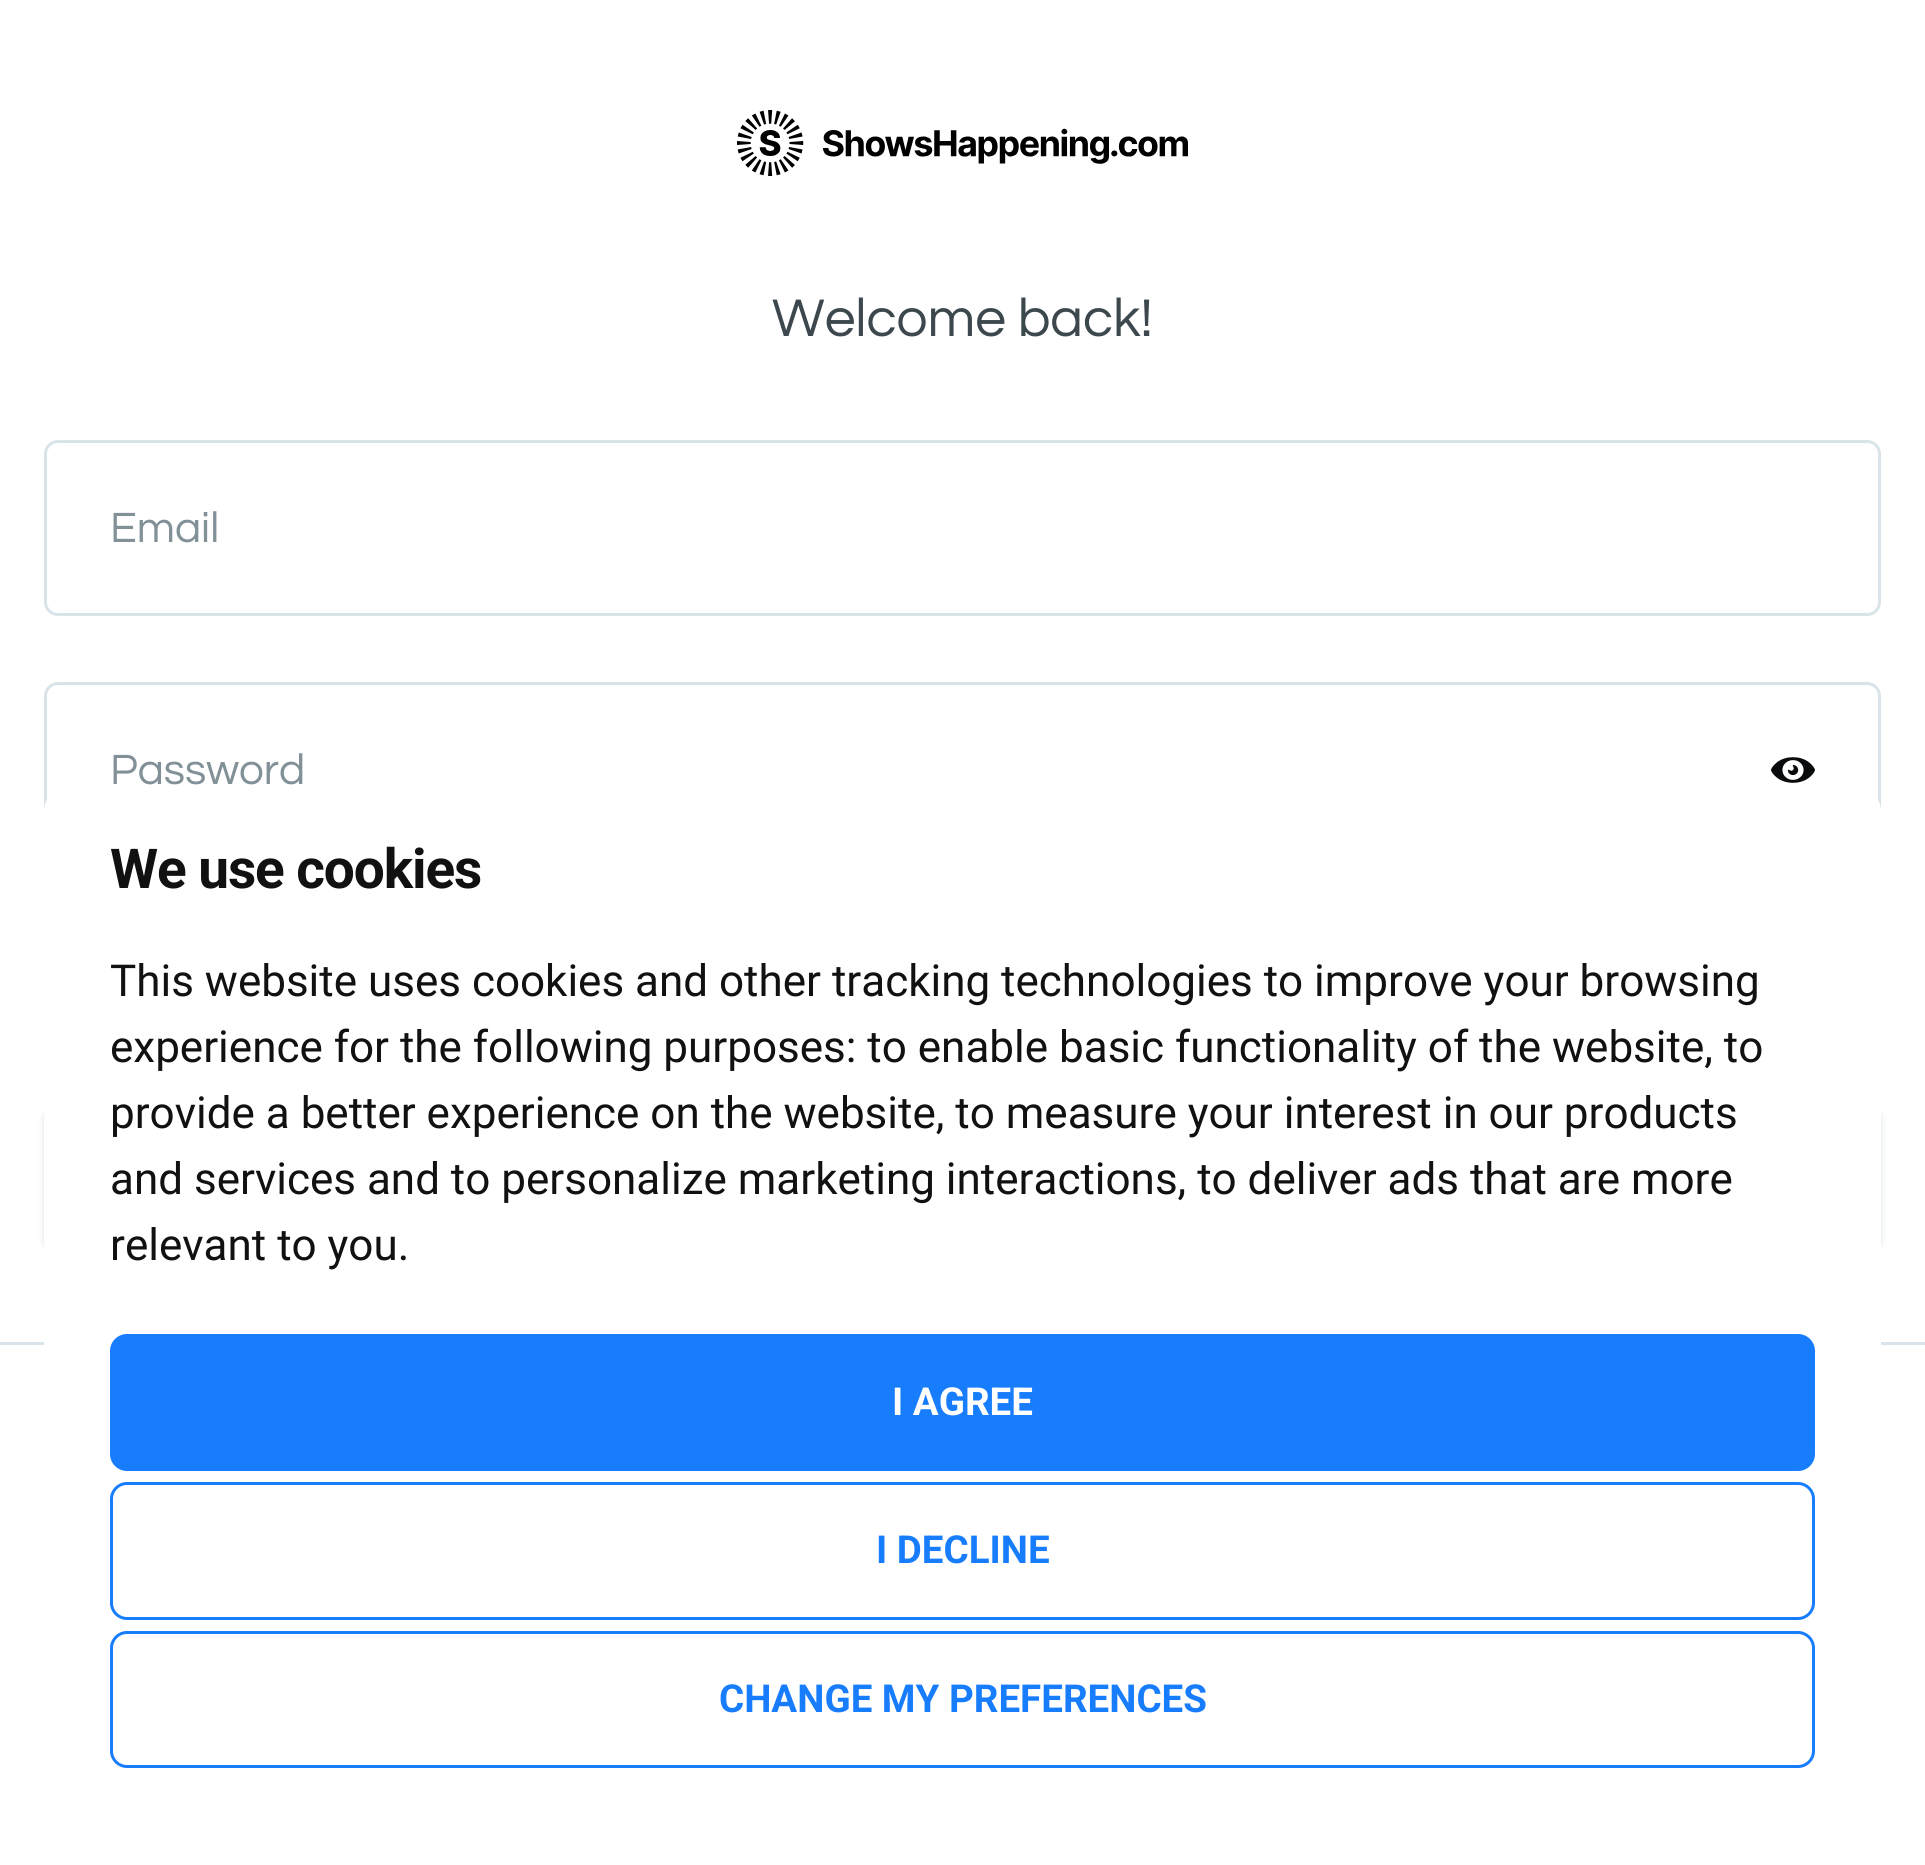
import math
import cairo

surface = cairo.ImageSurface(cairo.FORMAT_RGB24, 1925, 1865)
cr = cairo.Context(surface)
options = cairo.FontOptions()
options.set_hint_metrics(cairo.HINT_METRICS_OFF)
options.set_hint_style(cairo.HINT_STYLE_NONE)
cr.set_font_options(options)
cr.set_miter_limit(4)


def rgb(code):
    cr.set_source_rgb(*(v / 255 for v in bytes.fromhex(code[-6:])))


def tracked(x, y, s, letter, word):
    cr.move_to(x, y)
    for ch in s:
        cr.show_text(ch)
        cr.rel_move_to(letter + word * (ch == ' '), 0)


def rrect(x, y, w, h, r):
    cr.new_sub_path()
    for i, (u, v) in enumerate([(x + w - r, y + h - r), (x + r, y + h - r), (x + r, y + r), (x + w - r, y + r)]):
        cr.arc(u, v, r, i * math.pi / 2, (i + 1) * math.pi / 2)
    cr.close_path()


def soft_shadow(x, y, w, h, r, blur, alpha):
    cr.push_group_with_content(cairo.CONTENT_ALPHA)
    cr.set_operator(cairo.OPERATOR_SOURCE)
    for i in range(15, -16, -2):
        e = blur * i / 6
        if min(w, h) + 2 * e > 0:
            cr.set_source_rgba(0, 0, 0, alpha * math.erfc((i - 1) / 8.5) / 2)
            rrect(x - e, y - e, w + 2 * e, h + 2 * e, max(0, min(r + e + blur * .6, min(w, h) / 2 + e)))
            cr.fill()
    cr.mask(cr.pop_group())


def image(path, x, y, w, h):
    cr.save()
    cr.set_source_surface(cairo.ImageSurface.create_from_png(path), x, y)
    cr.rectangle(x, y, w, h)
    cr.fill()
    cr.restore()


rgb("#ffffff")
cr.paint()
image("img/1.png", 737, 110, 451, 66)
rrect(45.5, 441.5, 1834, 173, 12.5)
rgb("#d9e3ea")
cr.set_line_width(3)
cr.stroke()
rrect(45.5, 683.5, 1834, 173, 12.5)
cr.stroke()
image("img/2.png", 1771, 757, 44, 26)
rgb("#b1c2cf")
soft_shadow(44, 1103, 1837, 154, 17, 3, 0.5)
rgb("#d9e3ea")
cr.rectangle(0, 1342, 1925, 3)
cr.fill()
rgb("#ffffff")
rrect(44, 789, 1837, 1034, 22)
cr.fill()
rgb("#187dfd")
rrect(110, 1334, 1705, 137, 17)
cr.fill()
rrect(111.5, 1483.5, 1702, 135, 15.5)
cr.stroke()
rrect(111.5, 1632.5, 1702, 134, 15.5)
cr.stroke()
cr.select_font_face("Questrial")
cr.set_font_size(55)
rgb("#3c484e")
cr.move_to(772, 336)
cr.show_text("Welcome back!")
cr.set_font_size(44)
rgb("#819197")
cr.move_to(110, 542)
cr.show_text("Email")
cr.move_to(110, 784)
cr.show_text("Password")
cr.select_font_face("Roboto", cairo.FONT_SLANT_NORMAL, cairo.FONT_WEIGHT_BOLD)
cr.set_font_size(55)
rgb("#111111")
tracked(110, 888, "We use cookies", -1.1, 0)
cr.select_font_face("Roboto")
cr.set_font_size(44)
for x, y, s in [
    (110, 996, "This website uses cookies and other tracking technologies to improve your browsing"),
    (110, 1062, "experience for the following purposes: to enable basic functionality of the website, to"),
    (110, 1128, "provide a better experience on the website, to measure your interest in our products"),
    (110, 1194, "and services and to personalize marketing interactions, to deliver ads that are more"),
    (110, 1260, "relevant to you."),
]:
    cr.move_to(x, y)
    cr.show_text(s)
cr.select_font_face("Roboto", cairo.FONT_SLANT_NORMAL, cairo.FONT_WEIGHT_BOLD)
cr.set_font_size(38.5)
rgb("#ffffff")
cr.move_to(892, 1415)
cr.show_text("I AGREE")
rgb("#187dfd")
cr.move_to(876, 1563)
cr.show_text("I DECLINE")
cr.move_to(719, 1712)
cr.show_text("CHANGE MY PREFERENCES")
surface.write_to_png("page.png")
